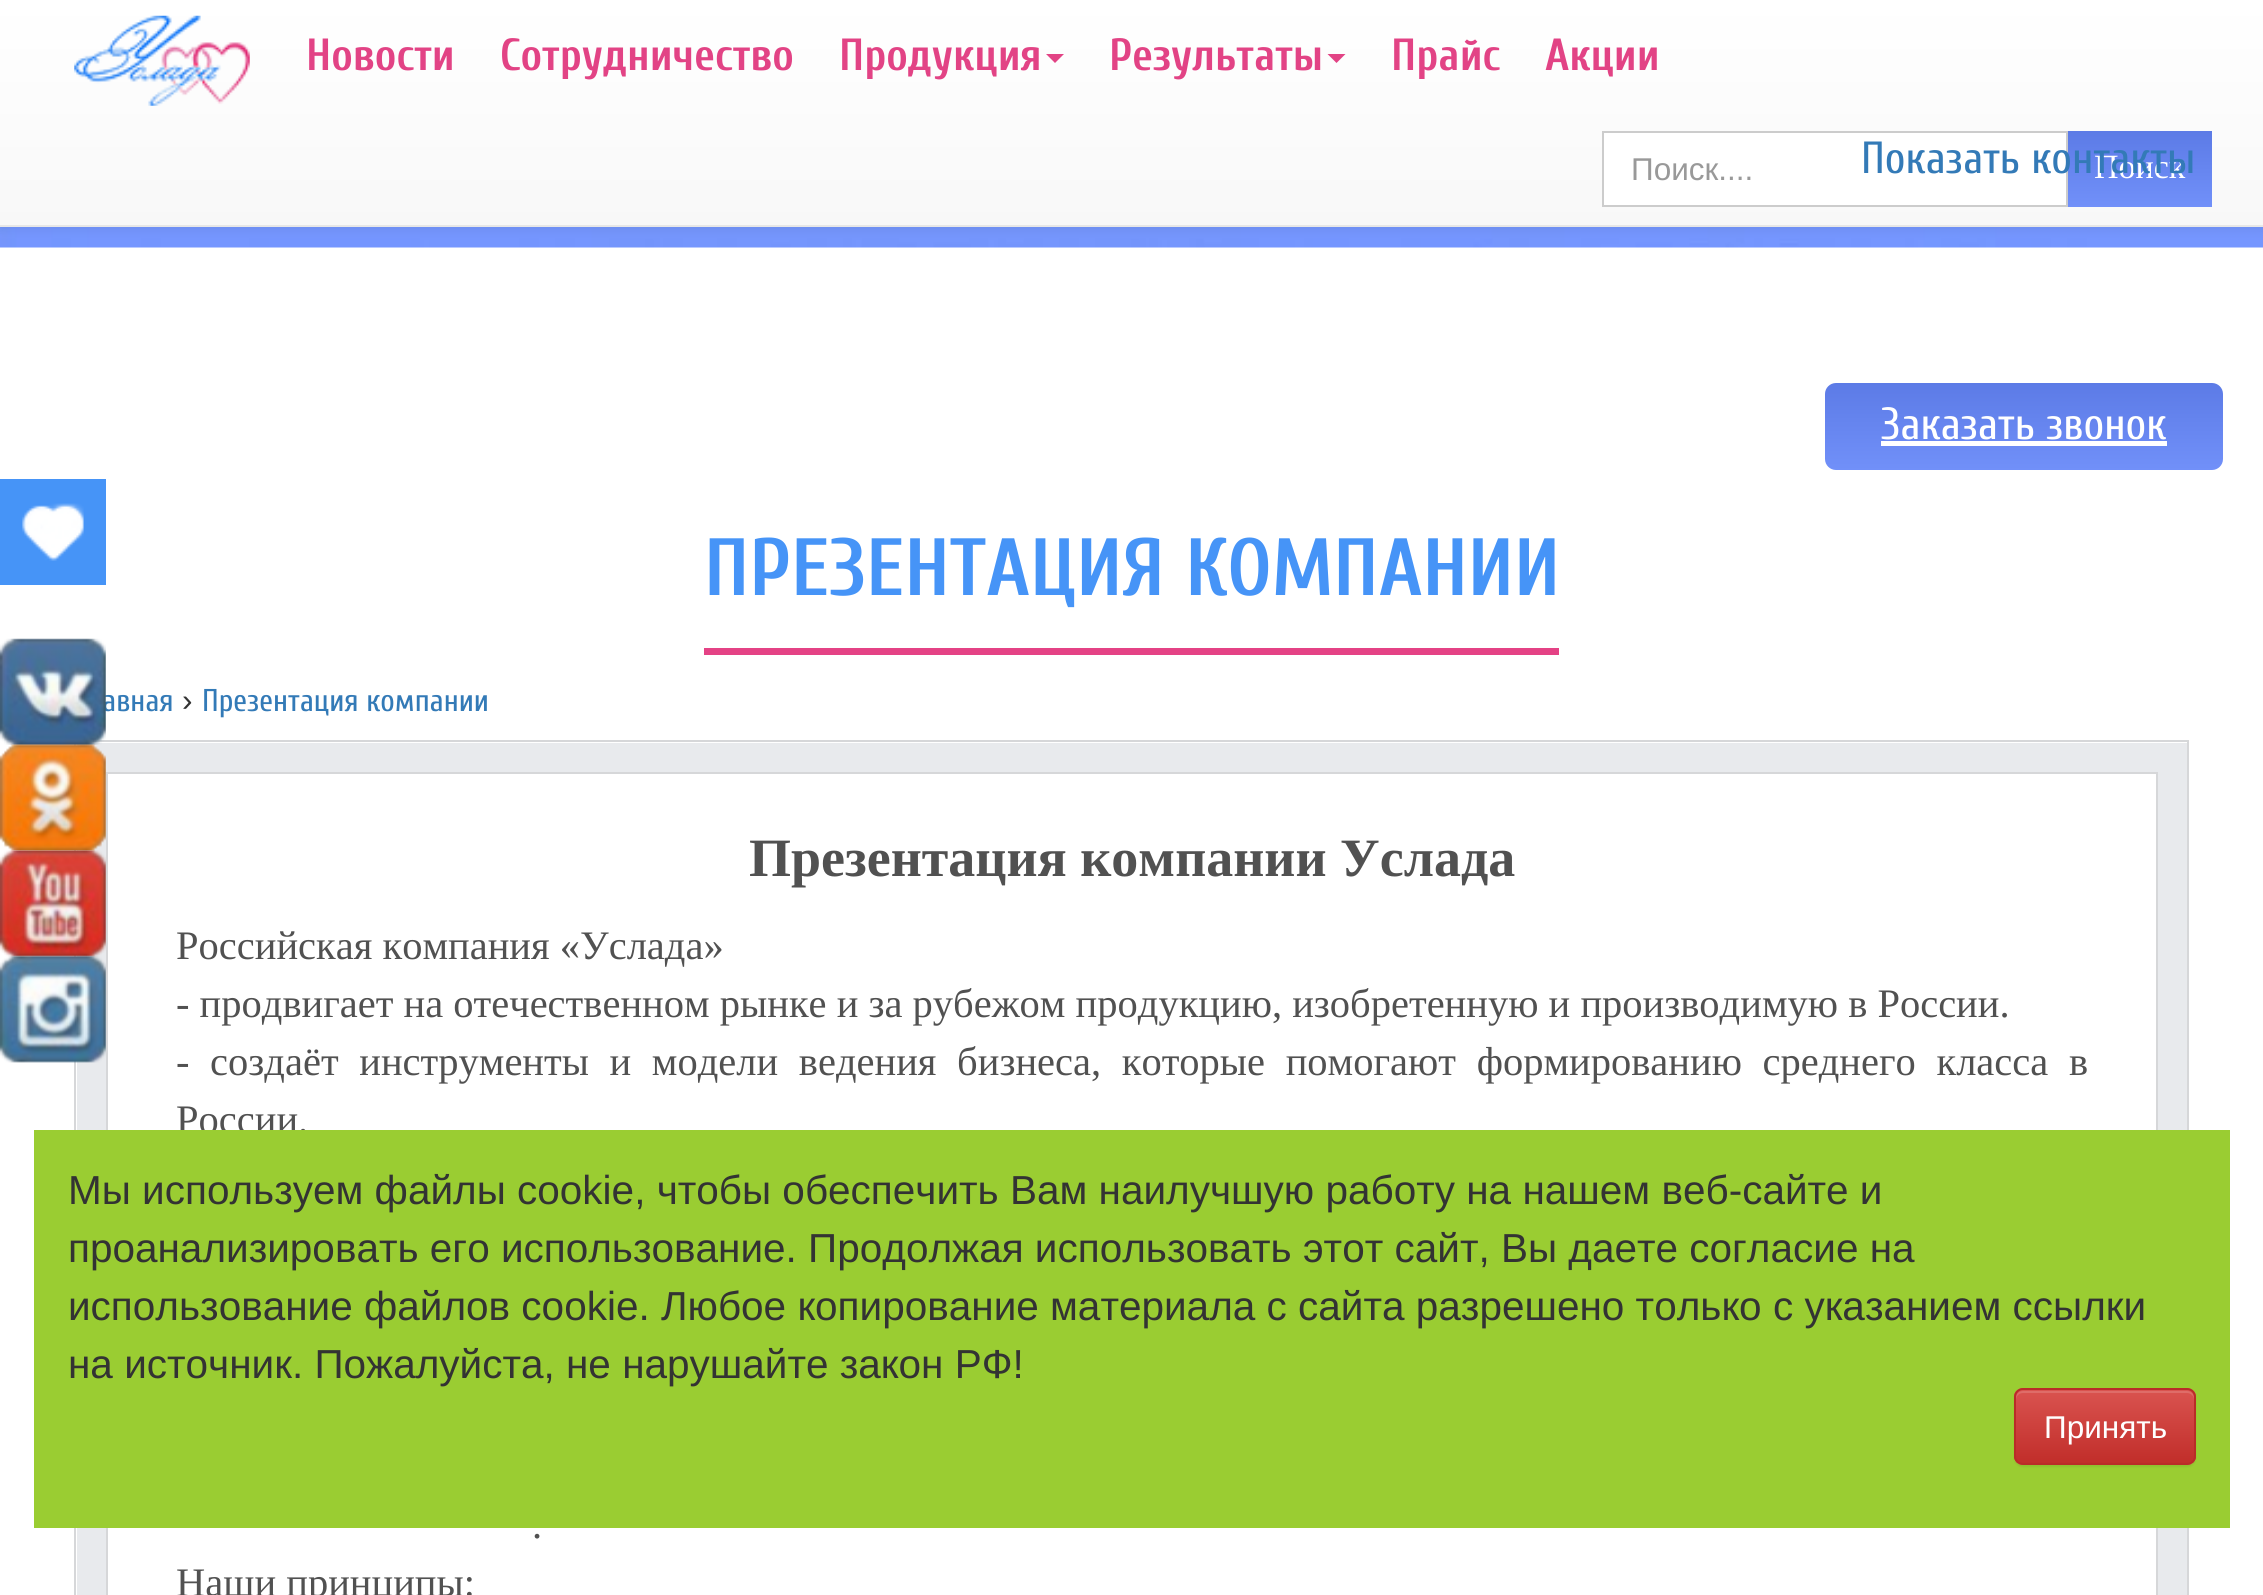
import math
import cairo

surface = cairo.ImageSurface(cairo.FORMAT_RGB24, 2263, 1595)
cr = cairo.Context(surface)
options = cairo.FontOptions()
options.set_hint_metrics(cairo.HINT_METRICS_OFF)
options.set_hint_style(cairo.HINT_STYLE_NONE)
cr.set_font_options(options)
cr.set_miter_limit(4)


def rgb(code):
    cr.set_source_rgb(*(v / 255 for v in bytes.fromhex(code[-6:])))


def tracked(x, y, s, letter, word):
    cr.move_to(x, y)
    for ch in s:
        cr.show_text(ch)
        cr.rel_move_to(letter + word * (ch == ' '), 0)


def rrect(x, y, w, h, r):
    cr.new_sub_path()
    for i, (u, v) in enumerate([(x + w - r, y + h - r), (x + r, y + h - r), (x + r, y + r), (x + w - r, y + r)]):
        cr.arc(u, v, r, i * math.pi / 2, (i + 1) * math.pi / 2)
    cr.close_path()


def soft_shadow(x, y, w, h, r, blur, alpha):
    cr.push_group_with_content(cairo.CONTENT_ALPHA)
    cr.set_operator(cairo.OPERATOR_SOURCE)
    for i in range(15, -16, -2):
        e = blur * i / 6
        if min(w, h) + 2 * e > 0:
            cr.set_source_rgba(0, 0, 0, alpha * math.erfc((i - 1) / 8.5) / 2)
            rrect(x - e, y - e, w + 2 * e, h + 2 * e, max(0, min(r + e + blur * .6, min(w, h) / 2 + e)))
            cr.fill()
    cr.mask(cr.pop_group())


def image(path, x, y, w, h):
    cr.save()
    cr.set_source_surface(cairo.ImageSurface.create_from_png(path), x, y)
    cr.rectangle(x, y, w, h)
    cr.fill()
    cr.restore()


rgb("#ffffff")
cr.paint()
image("img/2.png", 0, 227, 2263, 21)
rgb("#000000")
soft_shadow(0, 2, 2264, 228, 0, 5.5, 0.07)
gradient = cairo.LinearGradient(1132, 0, 1132, 225)
gradient.add_color_stop_rgba(0, 1, 1, 1, 1)
gradient.add_color_stop_rgba(1, 0.973, 0.973, 0.973, 1)
cr.set_source(gradient)
cr.rectangle(0, 0, 2263, 225)
cr.fill()
rgb("#e7e7e7")
cr.rectangle(0, 225, 2263, 2)
cr.fill()
image("img/1.png", 74, 15, 176, 91)
rgb("#e24385")
cr.new_path()
cr.move_to(1046, 54)
cr.line_to(1064, 54)
cr.line_to(1055, 63)
cr.close_path()
cr.fill()
cr.new_path()
cr.move_to(1327.5, 54)
cr.line_to(1345.5, 54)
cr.line_to(1336.5, 63)
cr.close_path()
cr.fill()
rgb("#ffffff")
cr.rectangle(1603, 132, 464, 74)
cr.fill_preserve()
rgb("#cccccc")
cr.stroke()
gradient = cairo.LinearGradient(2140, 207, 2140, 131)
gradient.add_color_stop_rgba(0, 0.443, 0.565, 0.976, 1)
gradient.add_color_stop_rgba(1, 0.361, 0.482, 0.902, 1)
cr.set_source(gradient)
cr.rectangle(2068, 131, 144, 76)
cr.fill()
rgb("#e44285")
cr.rectangle(704, 648, 855, 7)
cr.fill()
cr.rectangle(75, 741, 2113, 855)
rgb("#d6d7d9")
cr.stroke()
cr.rectangle(91.5, 757.5, 2081, 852)
rgb("#e8eaed")
cr.set_line_width(29)
cr.stroke()
cr.rectangle(107, 773, 2050, 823)
rgb("#d6d7d9")
cr.set_line_width(2)
cr.stroke()
rgb("#4694f7")
cr.rectangle(0, 479, 106, 106)
cr.fill()
image("img/3.png", 22, 503, 62, 58)
gradient = cairo.LinearGradient(2024, 470, 2024, 383)
gradient.add_color_stop_rgba(0, 0.443, 0.565, 0.976, 1)
gradient.add_color_stop_rgba(1, 0.361, 0.482, 0.902, 1)
cr.set_source(gradient)
rrect(1825, 383, 398, 87, 11)
cr.fill()
rgb("#ffffff")
cr.rectangle(1881, 441, 286, 5)
cr.fill()
cr.select_font_face("Cuprum", cairo.FONT_SLANT_NORMAL, cairo.FONT_WEIGHT_BOLD)
cr.set_font_size(45)
rgb("#e24385")
for x, y, s in [
    (306, 70, "Новости"),
    (500, 70, "Сотрудничество"),
    (839, 70, "Продукция"),
    (1109, 70, "Результаты"),
    (1391, 70, "Прайс"),
    (1545, 70, "Акции"),
]:
    cr.move_to(x, y)
    cr.show_text(s)
cr.select_font_face("Liberation Sans")
cr.set_font_size(31.5)
rgb("#999999")
cr.move_to(1631, 180)
cr.show_text("Поиск....")
cr.select_font_face("Liberation Serif")
cr.set_font_size(34)
rgb("#ffffff")
cr.move_to(2094, 178)
cr.show_text("Поиск")
cr.select_font_face("Cuprum")
cr.set_font_size(45)
rgb("#337ab7")
cr.move_to(1861, 173)
cr.show_text("Показать контакты")
cr.select_font_face("Cuprum", cairo.FONT_SLANT_NORMAL, cairo.FONT_WEIGHT_BOLD)
cr.set_font_size(81)
rgb("#4694f7")
cr.move_to(704, 595)
cr.show_text("ПРЕЗЕНТАЦИЯ КОМПАНИИ")
cr.select_font_face("Cuprum")
cr.set_font_size(31.5)
rgb("#337ab7")
cr.move_to(102, 711)
cr.show_text("авная")
cr.select_font_face("Liberation Sans")
rgb("#333333")
cr.move_to(182, 711)
cr.show_text("›")
cr.select_font_face("Cuprum")
rgb("#337ab7")
cr.move_to(202, 711)
cr.show_text("Презентация компании")
cr.select_font_face("Liberation Serif", cairo.FONT_SLANT_NORMAL, cairo.FONT_WEIGHT_BOLD)
cr.set_font_size(54)
rgb("#515151")
cr.move_to(749, 876)
cr.show_text("Презентация компании Услада")
cr.select_font_face("Liberation Serif")
cr.set_font_size(40.5)
cr.move_to(176, 959)
cr.show_text("Российская компания «Услада»")
cr.move_to(176, 1017)
cr.show_text("- продвигает на отечественном рынке и за рубежом продукцию, изобретенную и производимую в России.")
tracked(176, 1075, "- создаёт инструменты и модели ведения бизнеса, которые помогают формированию среднего класса в", 0, 10.5)
for x, y, s in [
    (176, 1133, "России."),
    (532, 1538, "."),
    (176, 1596, "Наши принципы:"),
]:
    cr.move_to(x, y)
    cr.show_text(s)
image("img/4.png", 0, 638, 106, 107)
image("img/5.png", 0, 744, 106, 107)
image("img/6.png", 0, 850, 106, 107)
image("img/7.png", 0, 955, 106, 108)
cr.select_font_face("Cuprum")
cr.set_font_size(45)
rgb("#ffffff")
cr.move_to(1881, 439)
cr.show_text("Заказать звонок")
rgb("#9acd32")
cr.rectangle(34, 1130, 2196, 398)
cr.fill()
cr.select_font_face("Liberation Sans")
cr.set_font_size(40.5)
rgb("#333333")
for x, y, s in [
    (68, 1204, "Мы используем файлы cookie, чтобы обеспечить Вам наилучшую работу на нашем веб-сайте и"),
    (68, 1262, "проанализировать его использование. Продолжая использовать этот сайт, Вы даете согласие на"),
    (68, 1320, "использование файлов cookie. Любое копирование материала с сайта разрешено только с указанием ссылки"),
    (68, 1378, "на источник. Пожалуйста, не нарушайте закон РФ!"),
]:
    cr.move_to(x, y)
    cr.show_text(s)
rgb("#000000")
soft_shadow(2014, 1391, 182, 76, 9, 1, 0.07)
rgb("#d9534f")
rrect(2014, 1388, 182, 77, 9)
cr.fill()
cr.save()
rrect(2014, 1388, 182, 77, 9)
cr.clip()
gradient = cairo.LinearGradient(2105, 1391, 2105, 1463)
gradient.add_color_stop_rgba(0, 0.851, 0.325, 0.31, 1)
gradient.add_color_stop_rgba(1, 0.757, 0.18, 0.165, 1)
cr.set_source(gradient)
cr.rectangle(2014, 1391, 182, 72)
cr.fill()
cr.restore()
cr.set_source_rgba(1, 1, 1, 0.15)
cr.new_path()
cr.move_to(2023, 1393)
cr.line_to(2187, 1393)
cr.curve_to(2191, 1393, 2194, 1396, 2194, 1400)
cr.line_to(2194, 1398)
cr.curve_to(2194, 1394, 2191, 1391, 2187, 1391)
cr.line_to(2023, 1391)
cr.curve_to(2019, 1391, 2016, 1394, 2016, 1398)
cr.line_to(2016, 1400)
cr.curve_to(2016, 1396, 2019, 1393, 2023, 1393)
cr.close_path()
cr.fill()
rrect(2015, 1389, 180, 75, 8)
rgb("#b92c28")
cr.stroke()
cr.set_font_size(31.5)
rgb("#ffffff")
cr.move_to(2044, 1438)
cr.show_text("Принять")
surface.write_to_png("page.png")
